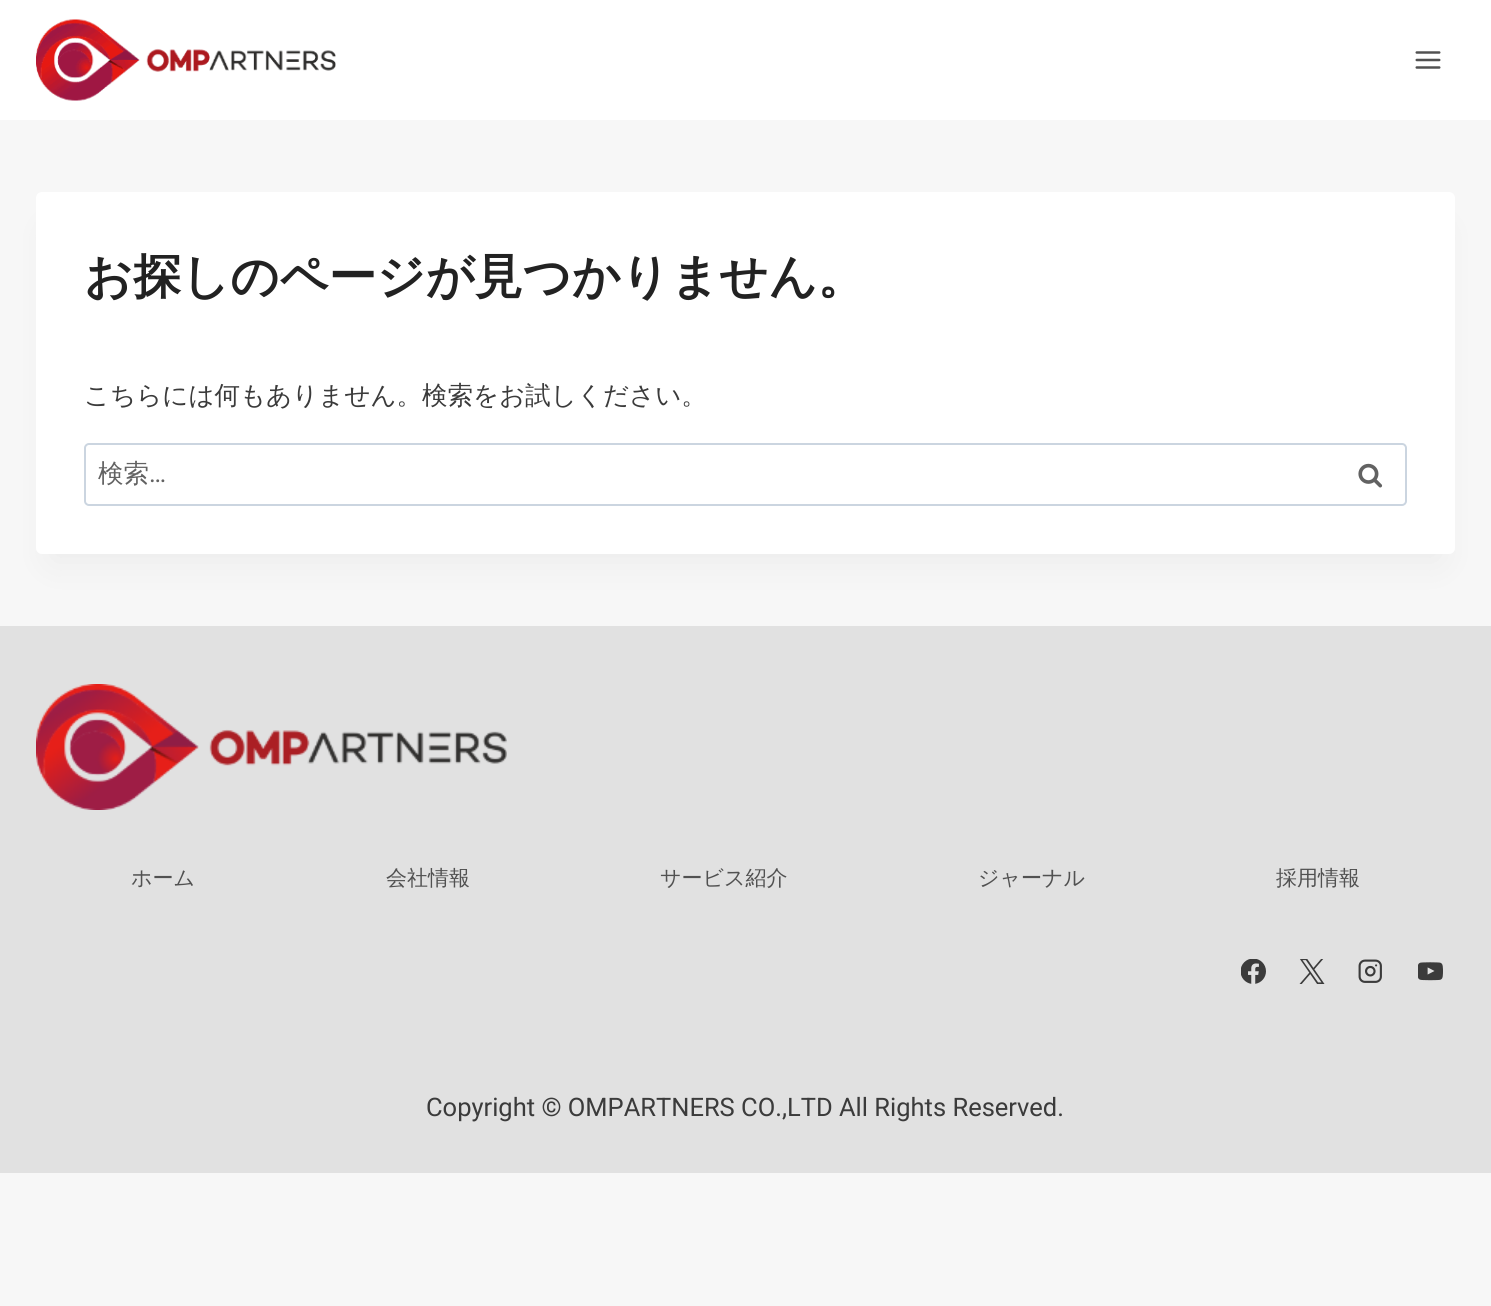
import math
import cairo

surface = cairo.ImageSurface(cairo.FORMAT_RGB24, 1491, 1306)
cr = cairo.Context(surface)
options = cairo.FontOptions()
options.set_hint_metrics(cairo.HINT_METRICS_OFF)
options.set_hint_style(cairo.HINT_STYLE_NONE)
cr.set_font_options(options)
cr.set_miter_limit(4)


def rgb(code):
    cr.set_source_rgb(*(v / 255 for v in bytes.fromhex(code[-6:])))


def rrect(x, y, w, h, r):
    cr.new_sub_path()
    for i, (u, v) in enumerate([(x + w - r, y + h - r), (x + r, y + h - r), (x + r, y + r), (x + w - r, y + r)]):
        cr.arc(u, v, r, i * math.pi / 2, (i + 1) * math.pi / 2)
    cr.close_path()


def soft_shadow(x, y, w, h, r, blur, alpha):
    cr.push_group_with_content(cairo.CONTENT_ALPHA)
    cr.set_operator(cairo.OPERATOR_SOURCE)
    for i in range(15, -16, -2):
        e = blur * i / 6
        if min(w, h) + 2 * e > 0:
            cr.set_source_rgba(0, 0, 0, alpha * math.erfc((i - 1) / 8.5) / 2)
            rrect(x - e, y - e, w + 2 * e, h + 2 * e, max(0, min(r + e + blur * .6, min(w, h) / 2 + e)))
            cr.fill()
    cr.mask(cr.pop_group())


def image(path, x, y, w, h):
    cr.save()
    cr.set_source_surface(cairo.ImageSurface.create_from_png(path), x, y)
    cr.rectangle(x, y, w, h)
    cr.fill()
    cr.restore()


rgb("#f7f7f7")
cr.paint()
rgb("#ffffff")
cr.rectangle(0, 0, 1491, 120)
cr.fill()
image("img/1.png", 36, 19, 300, 82)
image("img/2.png", 1415, 51, 26, 18)
rgb("#000000")
soft_shadow(51, 230, 1389, 331, 0, 19, 0.05)
rgb("#ffffff")
rrect(36, 192, 1419, 362, 6)
cr.fill()
rrect(85, 444, 1321, 61, 4)
rgb("#cbd5e0")
cr.stroke()
image("img/3.png", 1358, 463, 25, 25)
rgb("#e1e1e1")
cr.rectangle(0, 626, 1491, 547)
cr.fill()
image("img/4.png", 36, 684, 471, 126)
image("img/5.png", 1241, 959, 25, 25)
image("img/6.png", 1299, 959, 26, 25)
image("img/7.png", 1358, 959, 24, 24)
image("img/8.png", 1418, 962, 25, 19)
cr.select_font_face("WenQuanYi Zen Hei", cairo.FONT_SLANT_NORMAL, cairo.FONT_WEIGHT_BOLD)
cr.set_font_size(48)
rgb("#222222")
cr.move_to(84, 293)
cr.show_text("お探しのページが見つかりません。")
cr.select_font_face("WenQuanYi Zen Hei Medium")
cr.set_font_size(25.5)
rgb("#3b3b3b")
cr.move_to(84, 404)
cr.show_text("こちらには何もありません。検索をお試しください。")
rgb("#626262")
cr.move_to(98, 482)
cr.show_text("検索")
cr.select_font_face("Roboto")
cr.move_to(149, 482)
cr.show_text("…")
cr.select_font_face("WenQuanYi Zen Hei Medium")
cr.set_font_size(21)
rgb("#515151")
for x, y, s in [
    (131, 885, "ホーム"),
    (386, 885, "会社情報"),
    (660, 885, "サービス紹介"),
    (978, 885, "ジャーナル"),
    (1276, 885, "採用情報"),
]:
    cr.move_to(x, y)
    cr.show_text(s)
cr.select_font_face("Roboto")
cr.set_font_size(25.5)
rgb("#3b3b3b")
cr.move_to(426, 1116)
cr.show_text("Copyright © OMPARTNERS CO.,LTD All Rights Reserved.")
surface.write_to_png("page.png")
